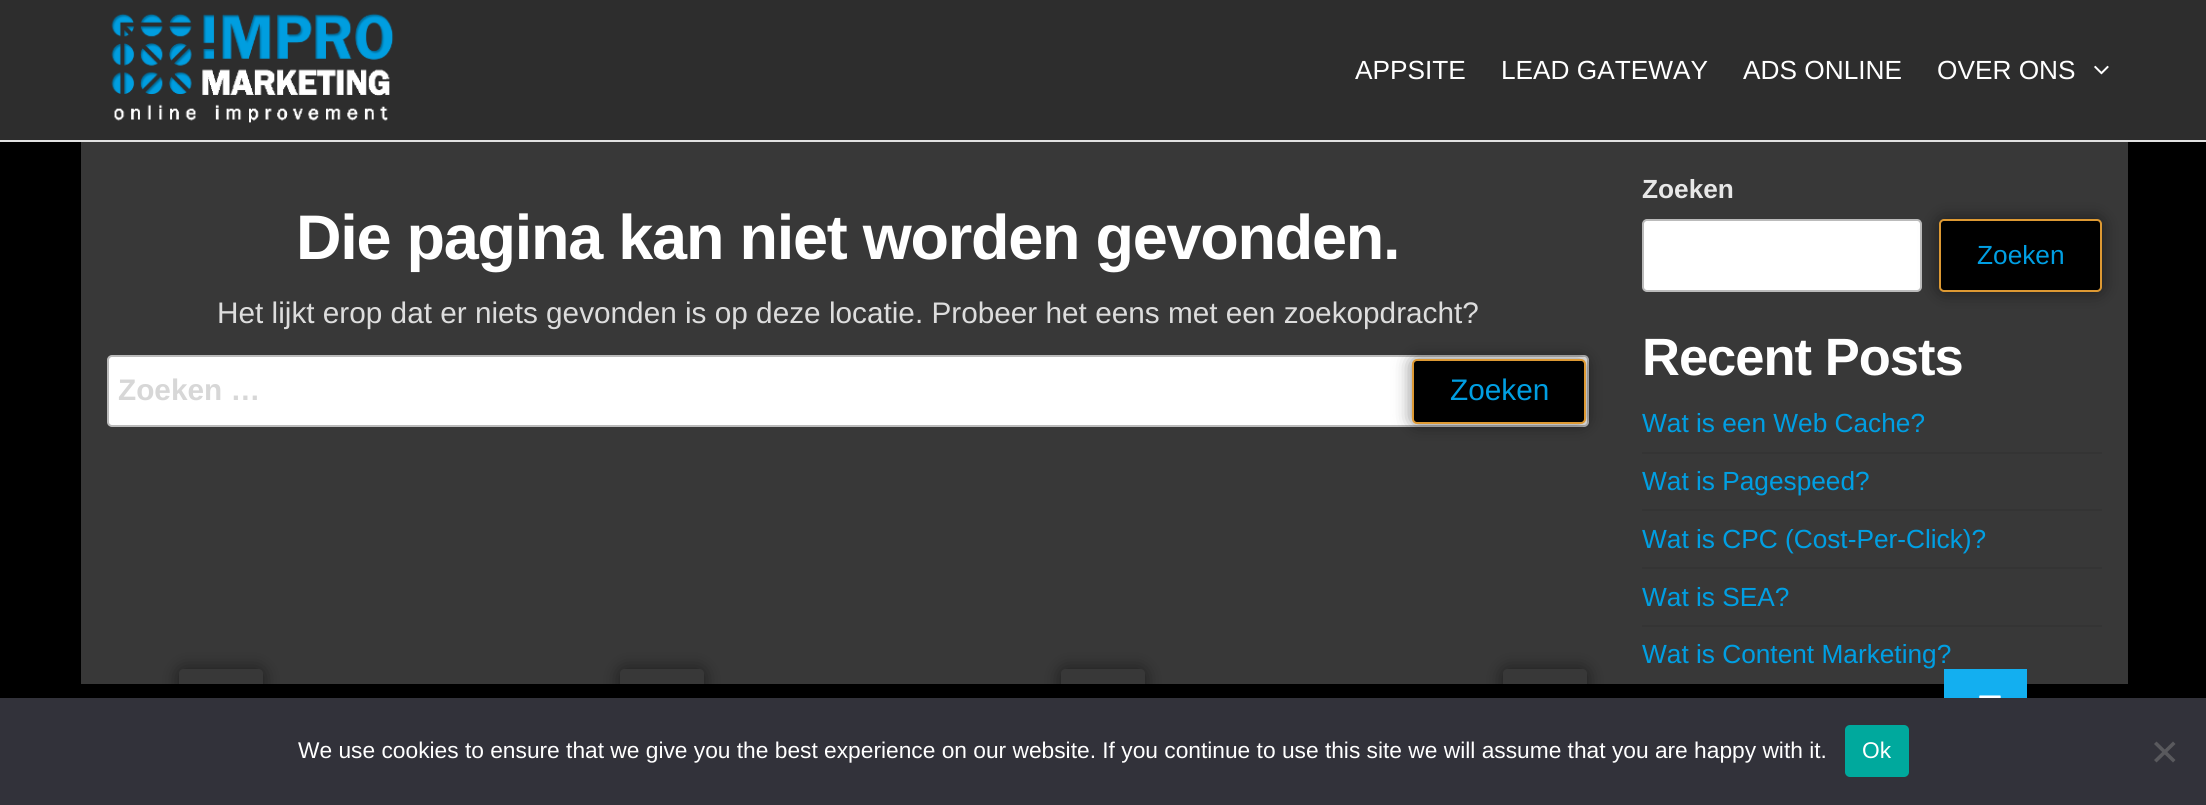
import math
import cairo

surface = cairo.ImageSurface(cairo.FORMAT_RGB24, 2206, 805)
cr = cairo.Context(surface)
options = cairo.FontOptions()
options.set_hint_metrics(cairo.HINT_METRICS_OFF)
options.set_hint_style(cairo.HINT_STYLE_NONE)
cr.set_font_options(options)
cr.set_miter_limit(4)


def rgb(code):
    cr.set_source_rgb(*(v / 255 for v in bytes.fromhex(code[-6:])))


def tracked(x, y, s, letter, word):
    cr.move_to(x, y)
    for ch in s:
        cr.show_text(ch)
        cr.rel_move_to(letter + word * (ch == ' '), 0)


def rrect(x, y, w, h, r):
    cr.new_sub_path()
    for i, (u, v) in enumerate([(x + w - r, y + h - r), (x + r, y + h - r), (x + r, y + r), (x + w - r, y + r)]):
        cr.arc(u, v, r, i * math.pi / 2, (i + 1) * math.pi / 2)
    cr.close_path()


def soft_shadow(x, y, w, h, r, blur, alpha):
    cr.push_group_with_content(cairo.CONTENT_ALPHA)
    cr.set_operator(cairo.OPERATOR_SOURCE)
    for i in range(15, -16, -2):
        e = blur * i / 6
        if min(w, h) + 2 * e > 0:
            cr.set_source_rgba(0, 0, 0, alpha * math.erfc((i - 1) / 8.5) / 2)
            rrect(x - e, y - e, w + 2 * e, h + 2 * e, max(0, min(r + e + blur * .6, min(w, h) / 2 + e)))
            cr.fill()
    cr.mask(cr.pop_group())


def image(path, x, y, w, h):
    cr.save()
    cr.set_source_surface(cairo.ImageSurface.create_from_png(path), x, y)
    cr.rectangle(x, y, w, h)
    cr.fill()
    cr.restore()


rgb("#000000")
cr.paint()
rgb("#2d2d2d")
cr.rectangle(0, 0, 2206, 140)
cr.fill()
rgb("#e2e2e2")
cr.rectangle(0, 140, 2206, 2)
cr.fill()
image("img/1.png", 111, 13, 283, 110)
image("img/2.png", 2094, 65, 15, 10)
rgb("#383838")
cr.rectangle(81, 142, 2047, 542)
cr.fill()
rgb("#ffffff")
rrect(108, 356, 1480, 70, 4)
cr.fill_preserve()
rgb("#bbbbbb")
cr.stroke()
rgb("#000000")
soft_shadow(1412, 359, 174, 65, 5, 9, 0.5)
rgb("#000000")
rrect(1413, 360, 172, 63, 4)
cr.fill_preserve()
rgb("#dd9933")
cr.stroke()
rgb("#ffffff")
rrect(1643, 220, 278, 71, 4)
cr.fill_preserve()
rgb("#bbbbbb")
cr.stroke()
rgb("#000000")
soft_shadow(1939, 219, 163, 73, 5, 9, 0.5)
rgb("#000000")
rrect(1940, 220, 161, 71, 4)
cr.fill_preserve()
rgb("#dd9933")
cr.stroke()
for x, y, w, h, color in [
    (1642, 452, 460, 2, "#343434"),
    (1642, 509, 460, 2, "#343434"),
    (1642, 567, 460, 2, "#343434"),
    (1642, 625, 460, 2, "#343434"),
]:
    rgb(color)
    cr.rectangle(x, y, w, h)
    cr.fill()
cr.save()
cr.set_fill_rule(cairo.FILL_RULE_EVEN_ODD)
cr.new_path()
cr.move_to(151, 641)
cr.line_to(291, 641)
cr.line_to(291, 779)
cr.line_to(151, 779)
cr.close_path()
cr.move_to(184, 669)
cr.line_to(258, 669)
cr.curve_to(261, 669, 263, 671, 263, 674)
cr.line_to(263, 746)
cr.curve_to(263, 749, 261, 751, 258, 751)
cr.line_to(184, 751)
cr.curve_to(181, 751, 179, 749, 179, 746)
cr.line_to(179, 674)
cr.curve_to(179, 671, 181, 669, 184, 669)
cr.close_path()
cr.clip()
rgb("#000000")
soft_shadow(179, 669, 84, 82, 5, 9, 0.5)
cr.restore()
cr.save()
cr.set_fill_rule(cairo.FILL_RULE_EVEN_ODD)
cr.new_path()
cr.move_to(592, 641)
cr.line_to(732, 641)
cr.line_to(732, 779)
cr.line_to(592, 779)
cr.close_path()
cr.move_to(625, 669)
cr.line_to(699, 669)
cr.curve_to(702, 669, 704, 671, 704, 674)
cr.line_to(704, 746)
cr.curve_to(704, 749, 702, 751, 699, 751)
cr.line_to(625, 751)
cr.curve_to(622, 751, 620, 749, 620, 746)
cr.line_to(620, 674)
cr.curve_to(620, 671, 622, 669, 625, 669)
cr.close_path()
cr.clip()
rgb("#000000")
soft_shadow(620, 669, 84, 82, 5, 9, 0.5)
cr.restore()
cr.save()
cr.set_fill_rule(cairo.FILL_RULE_EVEN_ODD)
cr.new_path()
cr.move_to(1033, 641)
cr.line_to(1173, 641)
cr.line_to(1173, 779)
cr.line_to(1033, 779)
cr.close_path()
cr.move_to(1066, 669)
cr.line_to(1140, 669)
cr.curve_to(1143, 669, 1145, 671, 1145, 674)
cr.line_to(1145, 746)
cr.curve_to(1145, 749, 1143, 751, 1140, 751)
cr.line_to(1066, 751)
cr.curve_to(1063, 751, 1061, 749, 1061, 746)
cr.line_to(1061, 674)
cr.curve_to(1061, 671, 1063, 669, 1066, 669)
cr.close_path()
cr.clip()
rgb("#000000")
soft_shadow(1061, 669, 84, 82, 5, 9, 0.5)
cr.restore()
cr.save()
cr.set_fill_rule(cairo.FILL_RULE_EVEN_ODD)
cr.new_path()
cr.move_to(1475, 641)
cr.line_to(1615, 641)
cr.line_to(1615, 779)
cr.line_to(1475, 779)
cr.close_path()
cr.move_to(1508, 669)
cr.line_to(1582, 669)
cr.curve_to(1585, 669, 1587, 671, 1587, 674)
cr.line_to(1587, 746)
cr.curve_to(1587, 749, 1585, 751, 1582, 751)
cr.line_to(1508, 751)
cr.curve_to(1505, 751, 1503, 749, 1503, 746)
cr.line_to(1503, 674)
cr.curve_to(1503, 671, 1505, 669, 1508, 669)
cr.close_path()
cr.clip()
rgb("#000000")
soft_shadow(1503, 669, 84, 82, 5, 9, 0.5)
cr.restore()
rgb("#13aff0")
cr.rectangle(1944, 669, 83, 29)
cr.fill()
image("img/3.png", 1979, 695, 22, 3)
rgb("#32323a")
cr.rectangle(0, 698, 2206, 107)
cr.fill()
rgb("#00a99d")
rrect(1845, 725, 64, 52, 5)
cr.fill()
rgb("#59595d")
cr.new_path()
cr.move_to(2173, 741.5)
cr.line_to(2175.5, 744)
cr.line_to(2156.5, 762.5)
cr.line_to(2154, 760)
cr.close_path()
cr.fill()
cr.new_path()
cr.move_to(2154, 744)
cr.line_to(2156.5, 741.5)
cr.line_to(2175.5, 760)
cr.line_to(2173, 762.5)
cr.close_path()
cr.fill()
cr.select_font_face("Liberation Sans")
cr.set_font_size(26.25)
rgb("#ffffff")
for x, y, s in [
    (1355, 79, "APPSITE"),
    (1501, 79, "LEAD GATEWAY"),
    (1743, 79, "ADS ONLINE"),
    (1937, 79, "OVER ONS"),
]:
    cr.move_to(x, y)
    cr.show_text(s)
cr.select_font_face("Liberation Sans", cairo.FONT_SLANT_NORMAL, cairo.FONT_WEIGHT_BOLD)
cr.set_font_size(63)
tracked(296, 259, "Die pagina kan niet worden gevonden.", -1.25, 0)
cr.select_font_face("Liberation Sans")
cr.set_font_size(29.75)
rgb("#dddddd")
cr.move_to(217, 323)
cr.show_text("Het lijkt erop dat er niets gevonden is op deze locatie. Probeer het eens met een zoekopdracht?")
cr.select_font_face("Liberation Sans", cairo.FONT_SLANT_NORMAL, cairo.FONT_WEIGHT_BOLD)
rgb("#d7d7d7")
cr.move_to(118, 400)
cr.show_text("Zoeken …")
cr.select_font_face("Liberation Sans")
rgb("#009fe3")
cr.move_to(1450, 400)
cr.show_text("Zoeken")
cr.select_font_face("Liberation Sans", cairo.FONT_SLANT_NORMAL, cairo.FONT_WEIGHT_BOLD)
cr.set_font_size(26.25)
rgb("#e8e8e8")
cr.move_to(1642, 198)
cr.show_text("Zoeken")
cr.select_font_face("Liberation Sans")
rgb("#009fe3")
cr.move_to(1977, 264)
cr.show_text("Zoeken")
cr.select_font_face("Liberation Sans", cairo.FONT_SLANT_NORMAL, cairo.FONT_WEIGHT_BOLD)
cr.set_font_size(52.5)
rgb("#ffffff")
tracked(1642, 375, "Recent Posts", -1, 0)
cr.select_font_face("Liberation Sans")
cr.set_font_size(26.25)
rgb("#009fe3")
for x, y, s in [
    (1642, 432, "Wat is een Web Cache?"),
    (1642, 490, "Wat is Pagespeed?"),
    (1642, 548, "Wat is CPC (Cost-Per-Click)?"),
    (1642, 606, "Wat is SEA?"),
    (1642, 663, "Wat is Content Marketing?"),
]:
    cr.move_to(x, y)
    cr.show_text(s)
cr.set_font_size(22.75)
rgb("#ffffff")
cr.move_to(298, 758)
cr.show_text("We use cookies to ensure that we give you the best experience on our website. If you continue to use this site we will assume that you are happy with it.")
cr.move_to(1862, 758)
cr.show_text("Ok")
surface.write_to_png("page.png")
